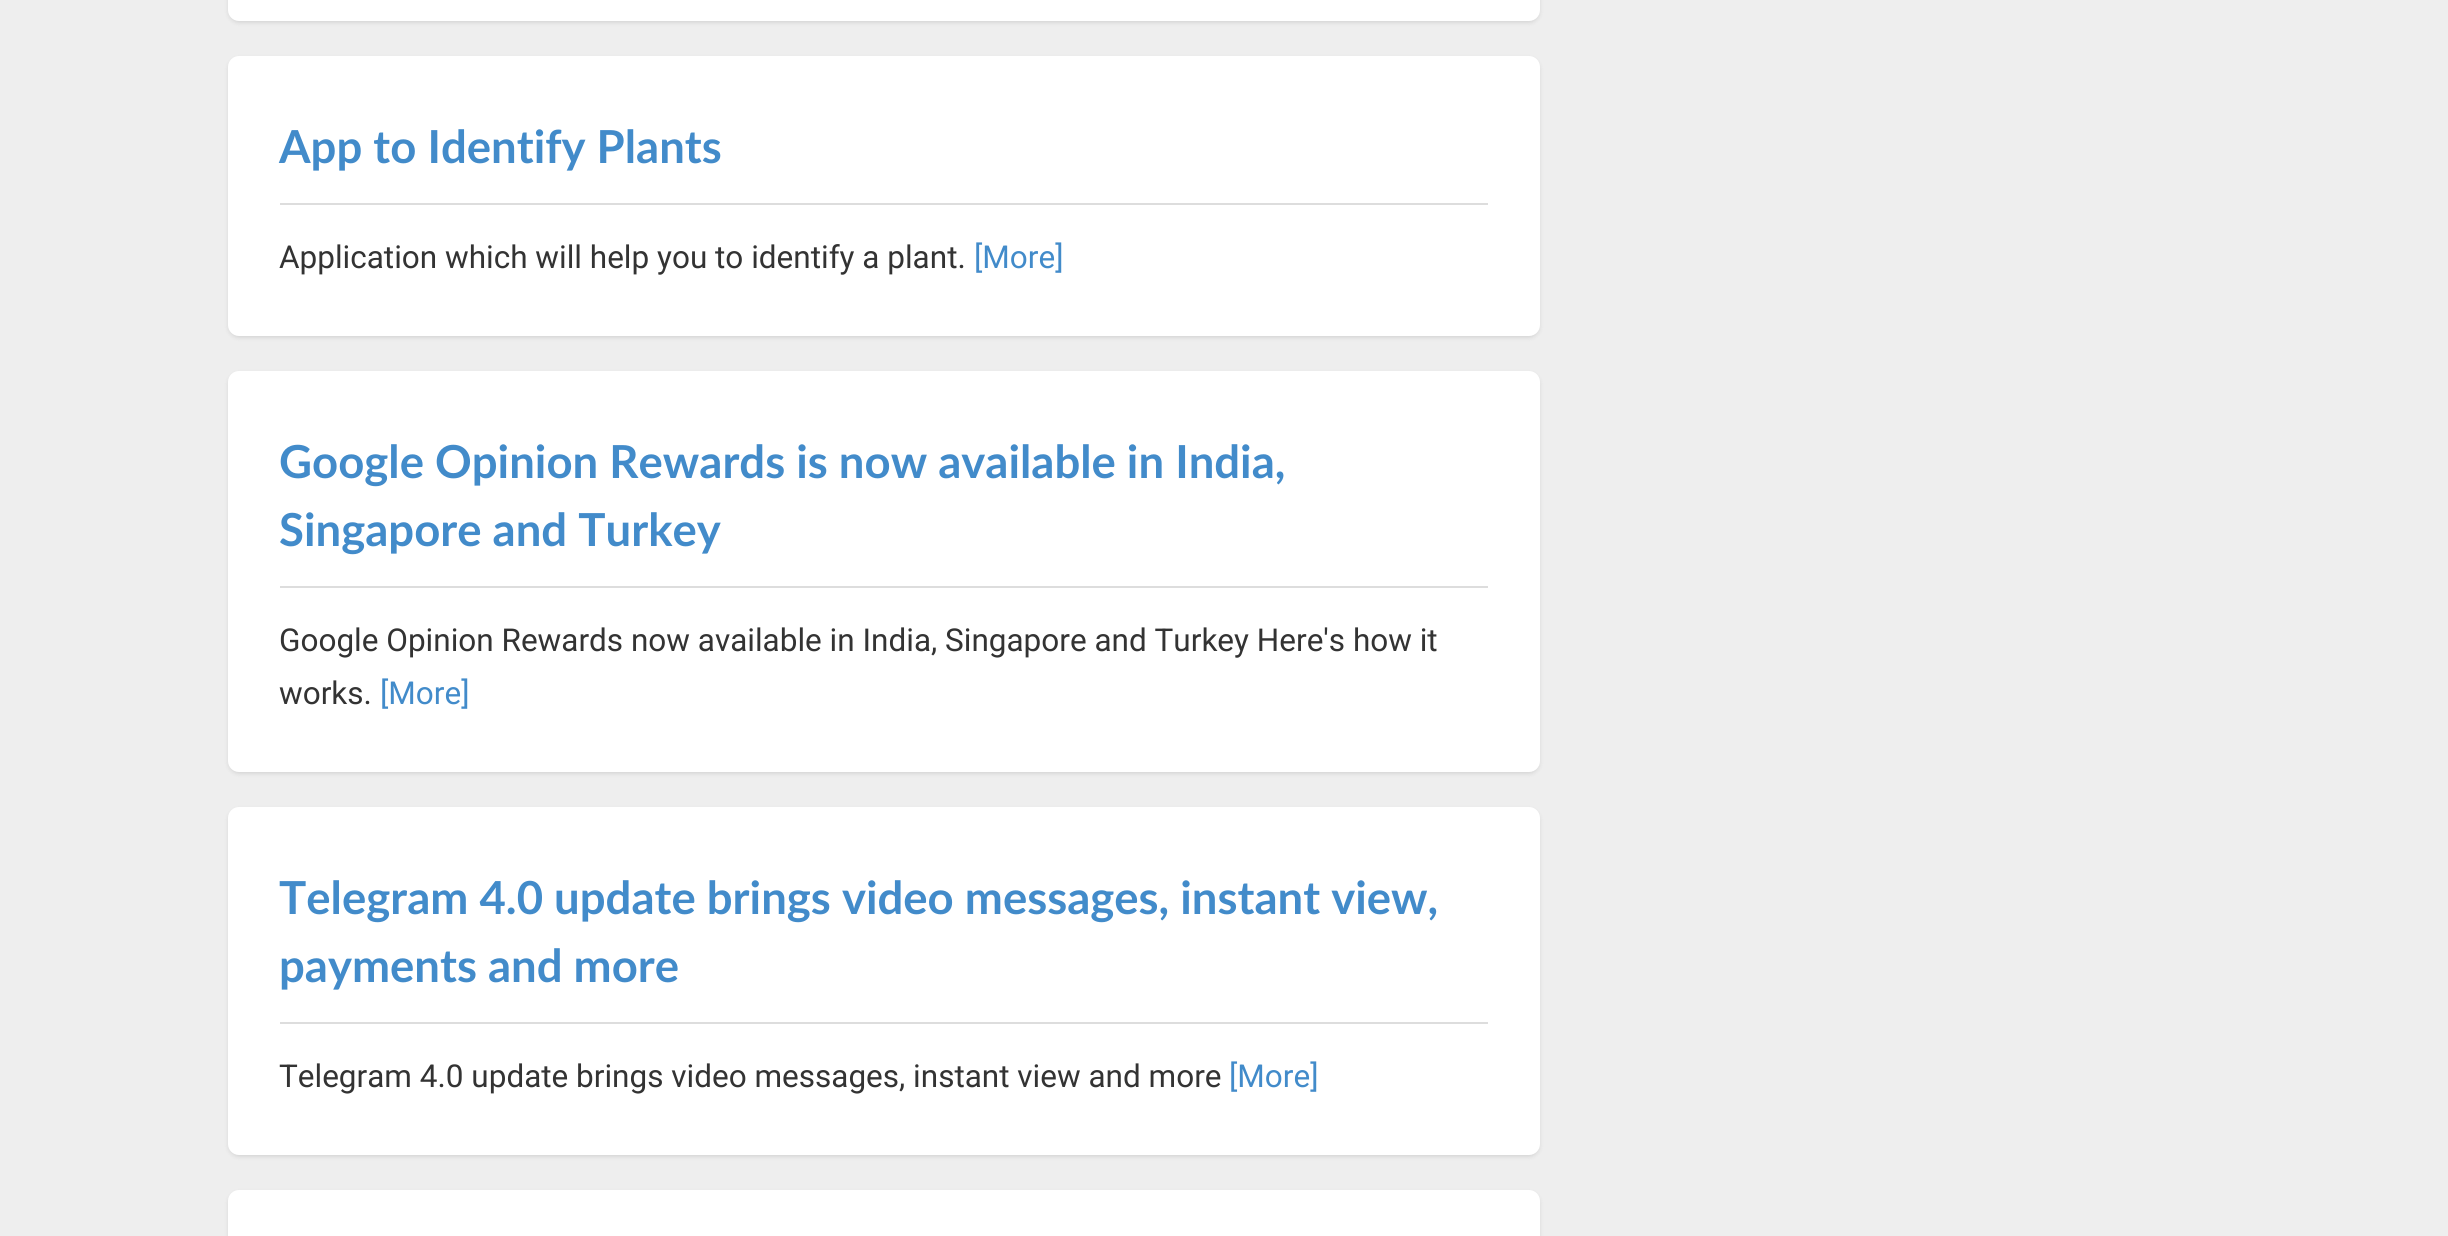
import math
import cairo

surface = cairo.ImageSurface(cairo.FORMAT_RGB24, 2448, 1236)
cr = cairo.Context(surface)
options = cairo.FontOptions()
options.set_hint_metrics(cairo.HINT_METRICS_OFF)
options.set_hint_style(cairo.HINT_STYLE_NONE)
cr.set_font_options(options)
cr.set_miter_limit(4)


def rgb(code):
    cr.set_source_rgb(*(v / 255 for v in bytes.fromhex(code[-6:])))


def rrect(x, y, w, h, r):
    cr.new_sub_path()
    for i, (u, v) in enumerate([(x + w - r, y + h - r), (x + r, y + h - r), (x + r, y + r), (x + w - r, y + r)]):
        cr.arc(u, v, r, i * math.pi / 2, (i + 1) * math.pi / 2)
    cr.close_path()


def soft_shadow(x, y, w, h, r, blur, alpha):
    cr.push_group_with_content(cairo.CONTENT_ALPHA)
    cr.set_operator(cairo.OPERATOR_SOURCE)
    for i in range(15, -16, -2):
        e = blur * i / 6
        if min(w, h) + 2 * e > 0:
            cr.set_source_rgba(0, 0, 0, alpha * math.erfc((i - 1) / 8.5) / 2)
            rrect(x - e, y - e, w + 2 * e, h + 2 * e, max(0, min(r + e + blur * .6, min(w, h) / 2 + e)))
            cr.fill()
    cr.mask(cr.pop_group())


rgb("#eeeeee")
cr.paint()
rgb("#000000")
soft_shadow(228, -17, 1312, 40, 11, 2, 0.1)
rgb("#ffffff")
rrect(228, -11, 1312, 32, 11)
cr.fill()
rgb("#000000")
soft_shadow(228, 58, 1312, 280, 11, 2, 0.1)
rgb("#ffffff")
rrect(228, 56, 1312, 280, 11)
cr.fill()
rgb("#dddddd")
cr.rectangle(280, 203, 1208, 2)
cr.fill()
rgb("#000000")
soft_shadow(228, 373, 1312, 401, 11, 2, 0.1)
rgb("#ffffff")
rrect(228, 371, 1312, 401, 11)
cr.fill()
rgb("#dddddd")
cr.rectangle(280, 586, 1208, 2)
cr.fill()
rgb("#000000")
soft_shadow(228, 809, 1312, 348, 11, 2, 0.1)
rgb("#ffffff")
rrect(228, 807, 1312, 348, 11)
cr.fill()
rgb("#dddddd")
cr.rectangle(280, 1022, 1208, 2)
cr.fill()
rgb("#000000")
soft_shadow(228, 1192, 1312, 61, 11, 2, 0.1)
rgb("#ffffff")
rrect(228, 1190, 1312, 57, 11)
cr.fill()
cr.select_font_face("Lato", cairo.FONT_SLANT_NORMAL, cairo.FONT_WEIGHT_BOLD)
cr.set_font_size(45.5)
rgb("#428bca")
cr.move_to(279, 163)
cr.show_text("App to Identify Plants")
cr.select_font_face("Roboto")
cr.set_font_size(31.5)
rgb("#333333")
cr.move_to(279, 268)
cr.show_text("Application which will help you to identify a plant.")
rgb("#428bca")
cr.move_to(974, 268)
cr.show_text("[More]")
cr.select_font_face("Lato", cairo.FONT_SLANT_NORMAL, cairo.FONT_WEIGHT_BOLD)
cr.set_font_size(45.5)
cr.move_to(279, 478)
cr.show_text("Google Opinion Rewards is now available in India,")
cr.move_to(279, 546)
cr.show_text("Singapore and Turkey")
cr.select_font_face("Roboto")
cr.set_font_size(31.5)
rgb("#333333")
cr.move_to(279, 651)
cr.show_text("Google Opinion Rewards now available in India, Singapore and Turkey Here's how it")
cr.move_to(279, 704)
cr.show_text("works.")
rgb("#428bca")
cr.move_to(380, 704)
cr.show_text("[More]")
cr.select_font_face("Lato", cairo.FONT_SLANT_NORMAL, cairo.FONT_WEIGHT_BOLD)
cr.set_font_size(45.5)
cr.move_to(279, 914)
cr.show_text("Telegram 4.0 update brings video messages, instant view,")
cr.move_to(279, 982)
cr.show_text("payments and more")
cr.select_font_face("Roboto")
cr.set_font_size(31.5)
rgb("#333333")
cr.move_to(279, 1087)
cr.show_text("Telegram 4.0 update brings video messages, instant view and more")
rgb("#428bca")
cr.move_to(1229, 1087)
cr.show_text("[More]")
surface.write_to_png("page.png")
